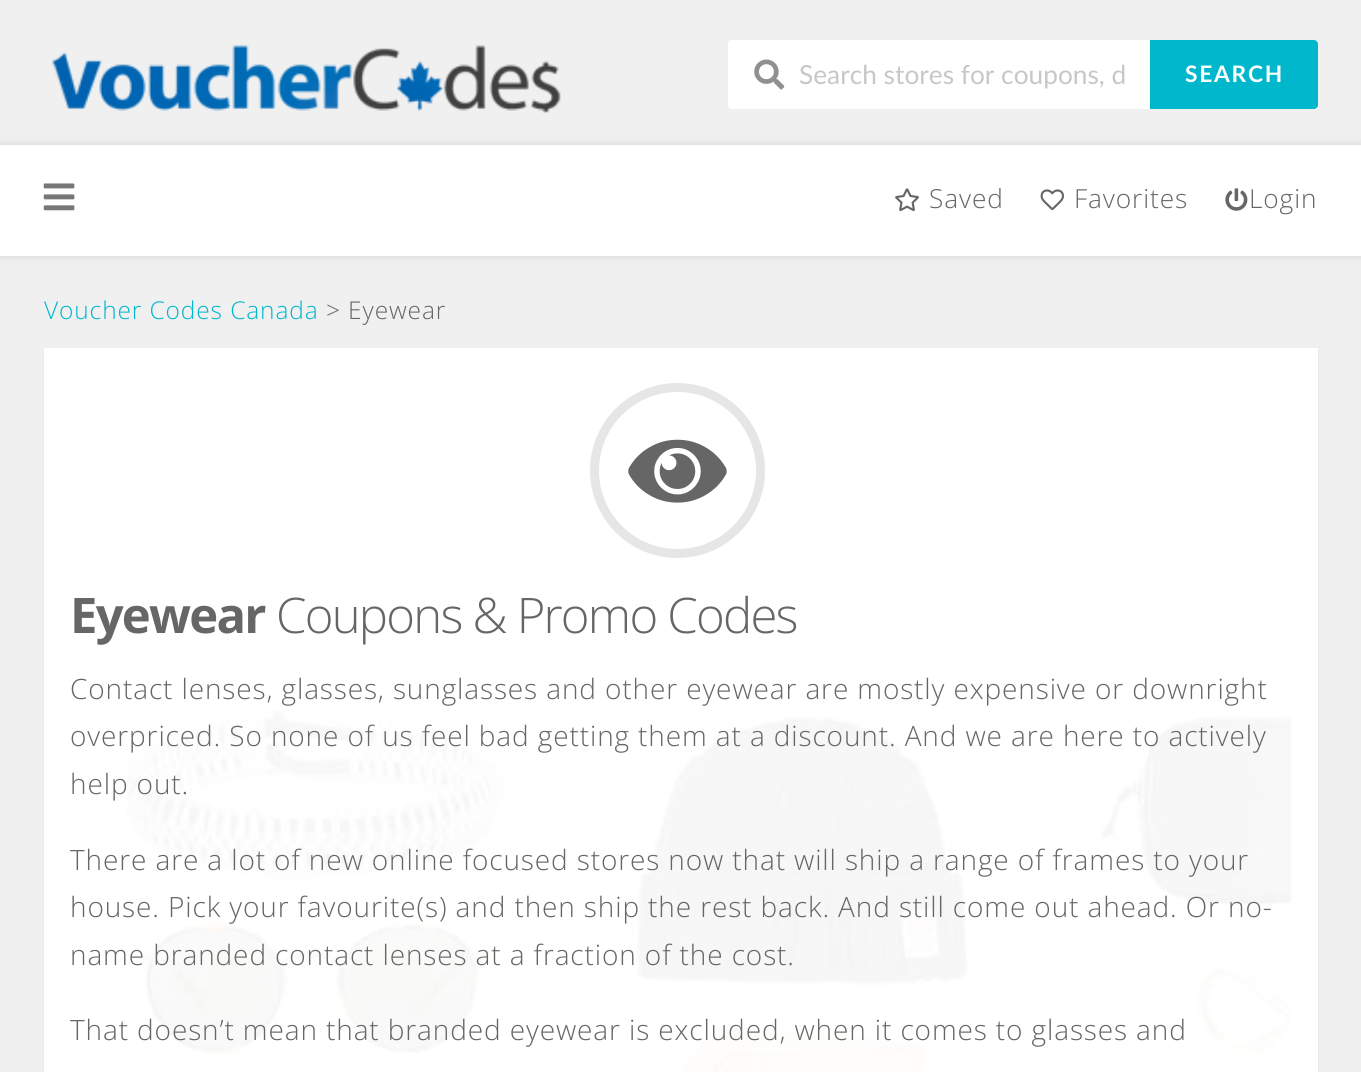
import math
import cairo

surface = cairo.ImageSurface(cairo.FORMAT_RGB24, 1361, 1072)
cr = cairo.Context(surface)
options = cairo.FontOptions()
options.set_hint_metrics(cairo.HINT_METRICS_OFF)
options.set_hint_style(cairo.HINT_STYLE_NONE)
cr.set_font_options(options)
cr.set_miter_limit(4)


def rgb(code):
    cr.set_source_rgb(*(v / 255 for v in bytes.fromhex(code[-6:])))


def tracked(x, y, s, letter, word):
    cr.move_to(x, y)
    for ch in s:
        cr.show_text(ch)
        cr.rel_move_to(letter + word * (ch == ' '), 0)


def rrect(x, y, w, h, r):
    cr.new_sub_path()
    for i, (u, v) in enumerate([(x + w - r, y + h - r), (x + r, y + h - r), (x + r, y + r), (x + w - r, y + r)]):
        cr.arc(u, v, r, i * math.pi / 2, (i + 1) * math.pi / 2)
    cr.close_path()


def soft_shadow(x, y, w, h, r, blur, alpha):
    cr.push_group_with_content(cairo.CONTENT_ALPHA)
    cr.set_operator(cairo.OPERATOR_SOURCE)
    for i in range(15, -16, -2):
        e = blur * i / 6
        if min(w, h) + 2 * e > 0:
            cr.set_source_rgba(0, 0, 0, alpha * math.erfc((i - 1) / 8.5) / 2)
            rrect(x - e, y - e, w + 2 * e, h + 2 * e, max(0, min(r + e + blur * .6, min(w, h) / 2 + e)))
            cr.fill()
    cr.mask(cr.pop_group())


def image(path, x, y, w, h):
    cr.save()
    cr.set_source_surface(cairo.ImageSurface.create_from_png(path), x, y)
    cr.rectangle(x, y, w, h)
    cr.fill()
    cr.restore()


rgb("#f0f0f0")
cr.paint()
image("img/1.png", 52, 45, 509, 68)
rgb("#ffffff")
cr.new_path()
cr.move_to(732, 40)
cr.line_to(1150, 40)
cr.line_to(1150, 109)
cr.line_to(732, 109)
cr.curve_to(730, 109, 728, 107, 728, 105)
cr.line_to(728, 44)
cr.curve_to(728, 42, 730, 40, 732, 40)
cr.close_path()
cr.fill()
image("img/2.png", 754, 59, 31, 31)
rgb("#00b7cc")
cr.new_path()
cr.move_to(1150, 40)
cr.line_to(1314, 40)
cr.curve_to(1316, 40, 1318, 42, 1318, 44)
cr.line_to(1318, 105)
cr.curve_to(1318, 107, 1316, 109, 1314, 109)
cr.line_to(1150, 109)
cr.close_path()
cr.fill()
rgb("#000000")
soft_shadow(0, 145, 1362, 111, 0, 4.5, 0.12)
rgb("#ffffff")
cr.rectangle(0, 145, 1361, 111)
cr.fill()
image("img/3.png", 43, 183, 32, 28)
image("img/4.png", 895, 188, 24, 24)
image("img/5.png", 1040, 189, 24, 21)
image("img/6.png", 1225, 188, 23, 23)
rgb("#000000")
soft_shadow(44, 350, 1274, 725, 0, 1, 0.08)
rgb("#ffffff")
cr.rectangle(44, 348, 1274, 724)
cr.fill()
cr.arc(677.5, 470.5, 83, 0, 2 * math.pi)
rgb("#e6e6e6")
cr.set_line_width(9)
cr.stroke()
image("img/7.png", 628, 439, 99, 64)
image("img/8.png", 127, 711, 1164, 361)
cr.select_font_face("Lato")
cr.set_font_size(26.25)
rgb("#c7c7c7")
cr.move_to(799, 84)
cr.show_text("Search stores for coupons, d")
cr.select_font_face("Lato", cairo.FONT_SLANT_NORMAL, cairo.FONT_WEIGHT_BOLD)
cr.set_font_size(22.75)
rgb("#ffffff")
tracked(1185, 82, "SEARCH", 1.75, 0)
cr.select_font_face("Open Sans Light")
cr.set_font_size(26.25)
rgb("#666666")
for x, y, s in [
    (929, 208, "Saved"),
    (1074, 208, "Favorites"),
    (1249, 208, "Login"),
]:
    tracked(x, y, s, 0.88, 0)
cr.set_font_size(24.5)
rgb("#00b7cc")
tracked(44, 319, "Voucher Codes Canada", 0.88, 0)
rgb("#666666")
tracked(326, 319, "> Eyewear", 0.88, 0)
cr.select_font_face("Open Sans", cairo.FONT_SLANT_NORMAL, cairo.FONT_WEIGHT_BOLD)
cr.set_font_size(49)
tracked(70, 633, "Eyewear", -1.75, 0)
cr.select_font_face("Open Sans Light")
tracked(276, 633, "Coupons & Promo Codes", -1.75, 0)
cr.set_font_size(28)
for x, y, s in [
    (70, 699, "Contact lenses, glasses, sunglasses and other eyewear are mostly expensive or downright"),
    (70, 746, "overpriced. So none of us feel bad getting them at a discount. And we are here to actively"),
    (70, 794, "help out."),
    (70, 870, "There are a lot of new online focused stores now that will ship a range of frames to your"),
    (70, 917, "house. Pick your favourite(s) and then ship the rest back. And still come out ahead. Or no-"),
    (70, 965, "name branded contact lenses at a fraction of the cost."),
    (70, 1040, "That doesn’t mean that branded eyewear is excluded, when it comes to glasses and"),
]:
    tracked(x, y, s, 0.88, 0)
surface.write_to_png("page.png")
